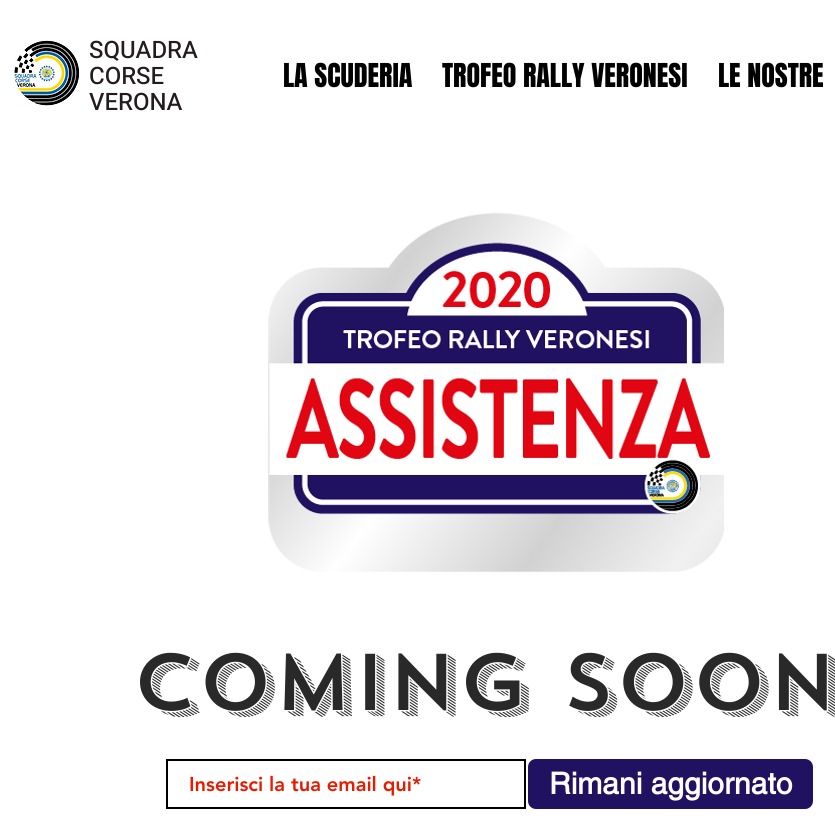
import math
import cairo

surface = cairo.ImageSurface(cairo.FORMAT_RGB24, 835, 838)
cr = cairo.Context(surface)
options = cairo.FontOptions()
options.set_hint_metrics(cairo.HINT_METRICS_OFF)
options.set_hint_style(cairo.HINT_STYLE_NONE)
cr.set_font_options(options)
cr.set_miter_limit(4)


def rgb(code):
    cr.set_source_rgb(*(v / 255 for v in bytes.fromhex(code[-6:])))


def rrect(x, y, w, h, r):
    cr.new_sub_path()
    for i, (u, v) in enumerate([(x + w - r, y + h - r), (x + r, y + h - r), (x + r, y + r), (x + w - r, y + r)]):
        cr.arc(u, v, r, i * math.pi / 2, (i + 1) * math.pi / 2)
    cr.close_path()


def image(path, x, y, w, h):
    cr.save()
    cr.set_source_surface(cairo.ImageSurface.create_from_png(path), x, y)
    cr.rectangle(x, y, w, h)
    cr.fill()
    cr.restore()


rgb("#ffffff")
cr.paint()
image("img/1.png", 12, 40, 68, 66)
image("img/2.png", 268, 212, 456, 360)
cr.rectangle(167, 760, 358, 48)
rgb("#000000")
cr.stroke()
rgb("#211261")
rrect(528, 759, 285, 50, 8)
cr.fill()
cr.select_font_face("Heebo Medium")
cr.set_font_size(24)
rgb("#241c1c")
for x, y, s in [
    (89, 58, "SQUADRA"),
    (89, 84, "CORSE"),
    (89, 110, "VERONA"),
]:
    cr.move_to(x, y)
    cr.show_text(s)
cr.select_font_face("Anton")
cr.set_font_size(28)
rgb("#010101")
for x, y, s in [
    (283, 87, "LA SCUDERIA"),
    (442, 87, "TROFEO RALLY VERONESI"),
    (718, 87, "LE NOSTRE"),
]:
    cr.move_to(x, y)
    cr.show_text(s)
cr.select_font_face("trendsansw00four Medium")
cr.set_font_size(80)
rgb("#292929")
cr.move_to(132, 710)
cr.show_text("coming soon")
cr.select_font_face("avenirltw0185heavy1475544 Black")
cr.set_font_size(20)
rgb("#e81b00")
cr.move_to(189, 791)
cr.show_text("Inserisci la tua email qui*")
cr.select_font_face("helvetica", cairo.FONT_SLANT_NORMAL, cairo.FONT_WEIGHT_BOLD)
cr.set_font_size(30)
rgb("#ffffff")
cr.move_to(549, 794)
cr.show_text("Rimani aggiornato")
surface.write_to_png("page.png")
